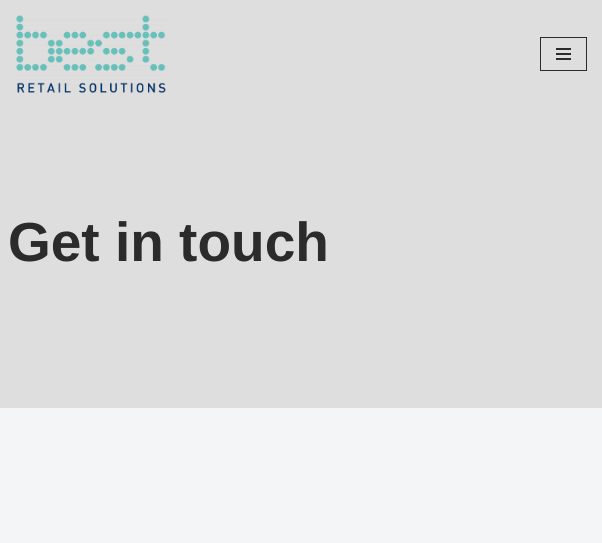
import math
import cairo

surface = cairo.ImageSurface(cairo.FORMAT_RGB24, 602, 543)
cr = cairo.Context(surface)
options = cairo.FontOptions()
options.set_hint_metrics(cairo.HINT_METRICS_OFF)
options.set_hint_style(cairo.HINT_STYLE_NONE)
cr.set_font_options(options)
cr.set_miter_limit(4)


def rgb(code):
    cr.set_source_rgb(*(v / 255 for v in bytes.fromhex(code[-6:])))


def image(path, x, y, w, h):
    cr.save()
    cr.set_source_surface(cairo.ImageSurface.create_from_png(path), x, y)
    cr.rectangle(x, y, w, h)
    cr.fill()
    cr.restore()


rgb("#dedede")
cr.paint()
image("img/1.png", 16, 15, 150, 78)
cr.rectangle(540.5, 37.5, 46, 33)
rgb("#2b2b2b")
cr.set_line_width(1)
cr.stroke()
for x, y, w, h, color in [
    (556, 48, 15, 2, "#2b2b2b"),
    (556, 53, 15, 2, "#2b2b2b"),
    (556, 58, 15, 2, "#2b2b2b"),
    (0, 408, 602, 135, "#f4f5f7"),
]:
    rgb(color)
    cr.rectangle(x, y, w, h)
    cr.fill()
cr.select_font_face("Liberation Sans", cairo.FONT_SLANT_NORMAL, cairo.FONT_WEIGHT_BOLD)
cr.set_font_size(55)
rgb("#2b2b2b")
cr.move_to(8, 261)
cr.show_text("Get in touch")
surface.write_to_png("page.png")
